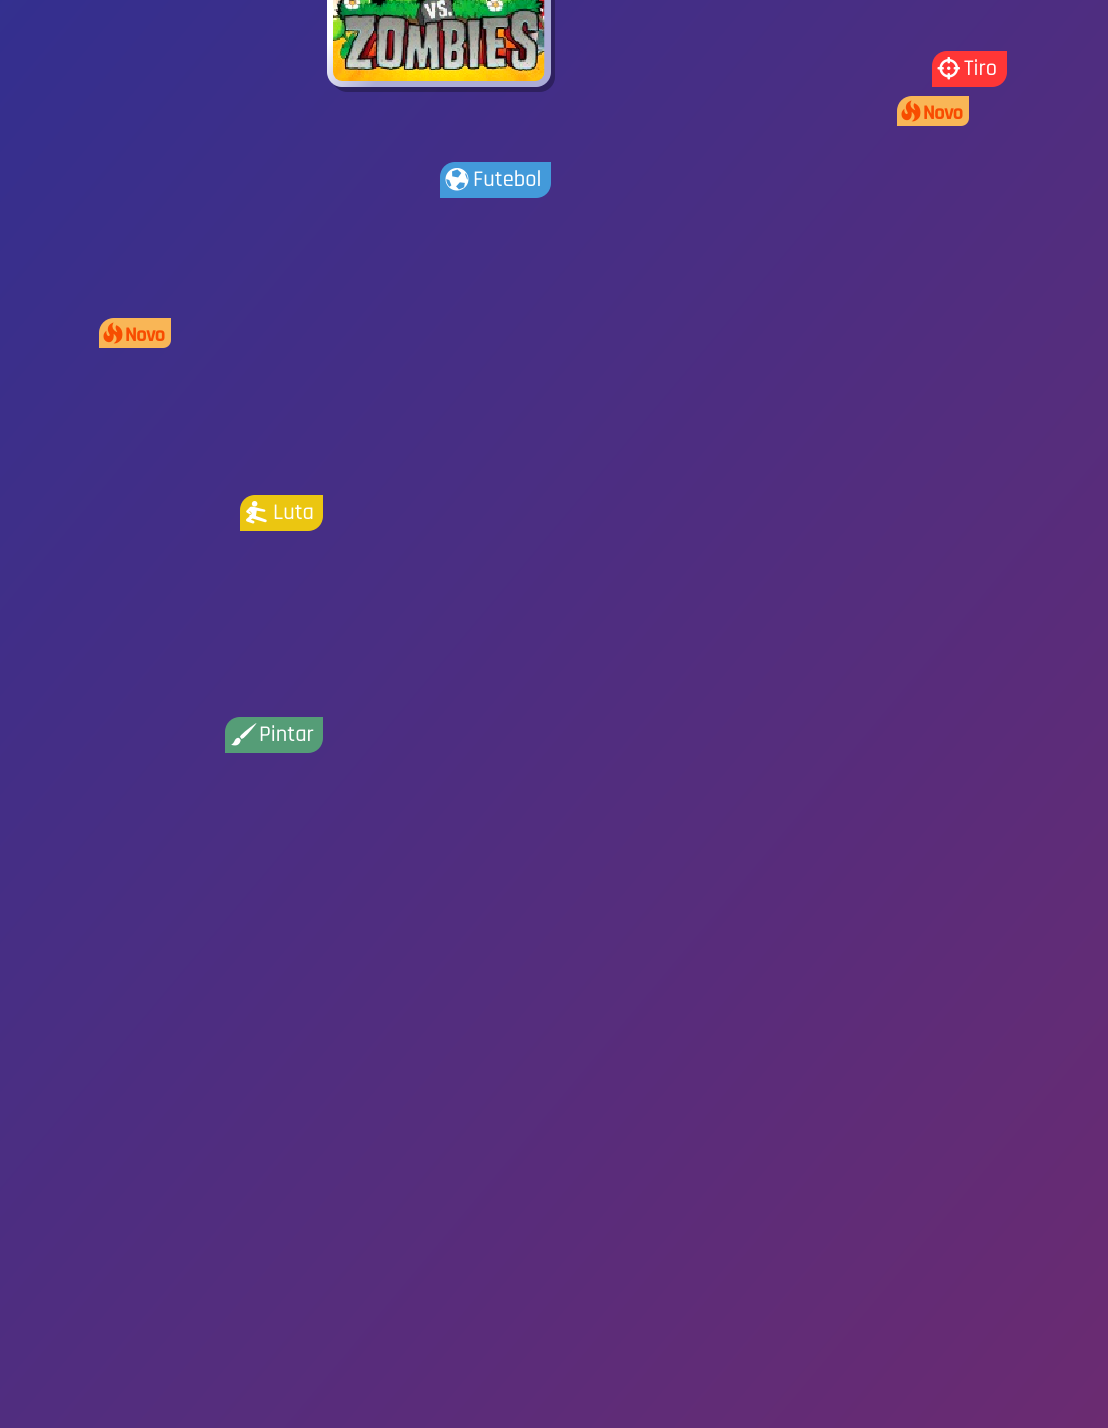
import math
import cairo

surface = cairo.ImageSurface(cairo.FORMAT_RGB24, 1108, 1428)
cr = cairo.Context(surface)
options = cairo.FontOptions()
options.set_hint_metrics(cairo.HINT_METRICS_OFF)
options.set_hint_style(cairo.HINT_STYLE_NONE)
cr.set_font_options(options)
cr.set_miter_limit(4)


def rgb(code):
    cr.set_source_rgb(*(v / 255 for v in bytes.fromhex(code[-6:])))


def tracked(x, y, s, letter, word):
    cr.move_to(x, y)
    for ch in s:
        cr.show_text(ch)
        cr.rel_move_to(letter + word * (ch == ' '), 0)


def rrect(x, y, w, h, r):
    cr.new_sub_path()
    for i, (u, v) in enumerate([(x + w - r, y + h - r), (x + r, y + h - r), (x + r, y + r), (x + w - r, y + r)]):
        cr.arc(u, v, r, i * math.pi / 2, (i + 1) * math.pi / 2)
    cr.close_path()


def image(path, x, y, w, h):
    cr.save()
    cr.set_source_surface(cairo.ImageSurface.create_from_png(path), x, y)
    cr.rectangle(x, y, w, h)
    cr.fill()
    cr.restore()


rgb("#ffffff")
cr.paint()
gradient = cairo.LinearGradient(-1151, 1149, 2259, 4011)
gradient.add_color_stop_rgba(0, 0.184, 0.188, 0.569, 1)
gradient.add_color_stop_rgba(1, 0.733, 0.141, 0.275, 1)
cr.set_source(gradient)
cr.rectangle(0, 0, 1108, 1428)
cr.fill()
cr.set_source_rgba(0, 0, 0, 0.3)
cr.new_path()
cr.move_to(334, 85)
cr.curve_to(337, 89, 342, 92, 347, 92)
cr.line_to(540, 92)
cr.curve_to(548, 92, 555, 85, 555, 77)
cr.line_to(555, -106)
cr.curve_to(555, -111, 552, -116, 549, -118)
cr.curve_to(550, -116, 550, -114, 550, -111)
cr.line_to(550, 72)
cr.curve_to(550, 80, 544, 87, 536, 87)
cr.line_to(342, 87)
cr.curve_to(339, 87, 336, 86, 334, 85)
cr.close_path()
cr.fill()
gradient = cairo.LinearGradient(332, -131, 545, 92)
gradient.add_color_stop_rgba(0.4, 1, 1, 1, 1)
gradient.add_color_stop_rgba(0.6, 0.675, 0.675, 0.843, 1)
cr.set_source(gradient)
rrect(327, -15, 224, 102, 15)
cr.fill()
image("img/1.png", 333, 0, 212, 81)
rgb("#ff3636")
cr.new_path()
cr.move_to(947, 51)
cr.line_to(1007, 51)
cr.line_to(1007, 72)
cr.curve_to(1007, 80.5, 1000.5, 87, 992, 87)
cr.line_to(932, 87)
cr.line_to(932, 66)
cr.curve_to(932, 57.5, 938.5, 51, 947, 51)
cr.close_path()
cr.fill()
image("img/2.png", 937, 57, 23, 23)
rgb("#f9b656")
cr.new_path()
cr.move_to(912, 96)
cr.line_to(969, 96)
cr.line_to(969, 118)
cr.curve_to(969, 122.5, 965.5, 126, 961, 126)
cr.line_to(897, 126)
cr.line_to(897, 111)
cr.curve_to(897, 102.5, 903.5, 96, 912, 96)
cr.close_path()
cr.fill()
image("img/3.png", 901, 100, 20, 22)
rgb("#439ada")
cr.new_path()
cr.move_to(455, 162)
cr.line_to(551, 162)
cr.line_to(551, 183)
cr.curve_to(551, 191.5, 544.5, 198, 536, 198)
cr.line_to(440, 198)
cr.line_to(440, 177)
cr.curve_to(440, 168.5, 446.5, 162, 455, 162)
cr.close_path()
cr.fill()
image("img/4.png", 445, 168, 24, 23)
rgb("#f9b656")
cr.new_path()
cr.move_to(114, 318)
cr.line_to(171, 318)
cr.line_to(171, 340)
cr.curve_to(171, 344.5, 167.5, 348, 163, 348)
cr.line_to(99, 348)
cr.line_to(99, 333)
cr.curve_to(99, 324.5, 105.5, 318, 114, 318)
cr.close_path()
cr.fill()
image("img/5.png", 103, 322, 20, 22)
rgb("#ebc611")
cr.new_path()
cr.move_to(255, 495)
cr.line_to(323, 495)
cr.line_to(323, 516)
cr.curve_to(323, 524.5, 316.5, 531, 308, 531)
cr.line_to(240, 531)
cr.line_to(240, 510)
cr.curve_to(240, 501.5, 246.5, 495, 255, 495)
cr.close_path()
cr.fill()
image("img/6.png", 246, 501, 21, 23)
rgb("#559d77")
cr.new_path()
cr.move_to(240, 717)
cr.line_to(323, 717)
cr.line_to(323, 738)
cr.curve_to(323, 746.5, 316.5, 753, 308, 753)
cr.line_to(225, 753)
cr.line_to(225, 732)
cr.curve_to(225, 723.5, 231.5, 717, 240, 717)
cr.close_path()
cr.fill()
image("img/7.png", 231, 723, 26, 23)
cr.select_font_face("Rajdhani Medium")
cr.set_font_size(22.5)
rgb("#ffffff")
cr.move_to(964, 75)
cr.show_text("Tiro")
cr.select_font_face("Rajdhani", cairo.FONT_SLANT_NORMAL, cairo.FONT_WEIGHT_BOLD)
cr.set_font_size(21)
rgb("#f84c01")
tracked(923, 119, "Novo", -1, 0)
cr.select_font_face("Rajdhani Medium")
cr.set_font_size(22.5)
rgb("#ffffff")
cr.move_to(473, 186)
cr.show_text("Futebol")
cr.select_font_face("Rajdhani", cairo.FONT_SLANT_NORMAL, cairo.FONT_WEIGHT_BOLD)
cr.set_font_size(21)
rgb("#f84c01")
tracked(125, 341, "Novo", -1, 0)
cr.select_font_face("Rajdhani Medium")
cr.set_font_size(22.5)
rgb("#ffffff")
cr.move_to(273, 519)
cr.show_text("Luta")
cr.move_to(259, 741)
cr.show_text("Pintar")
surface.write_to_png("page.png")
